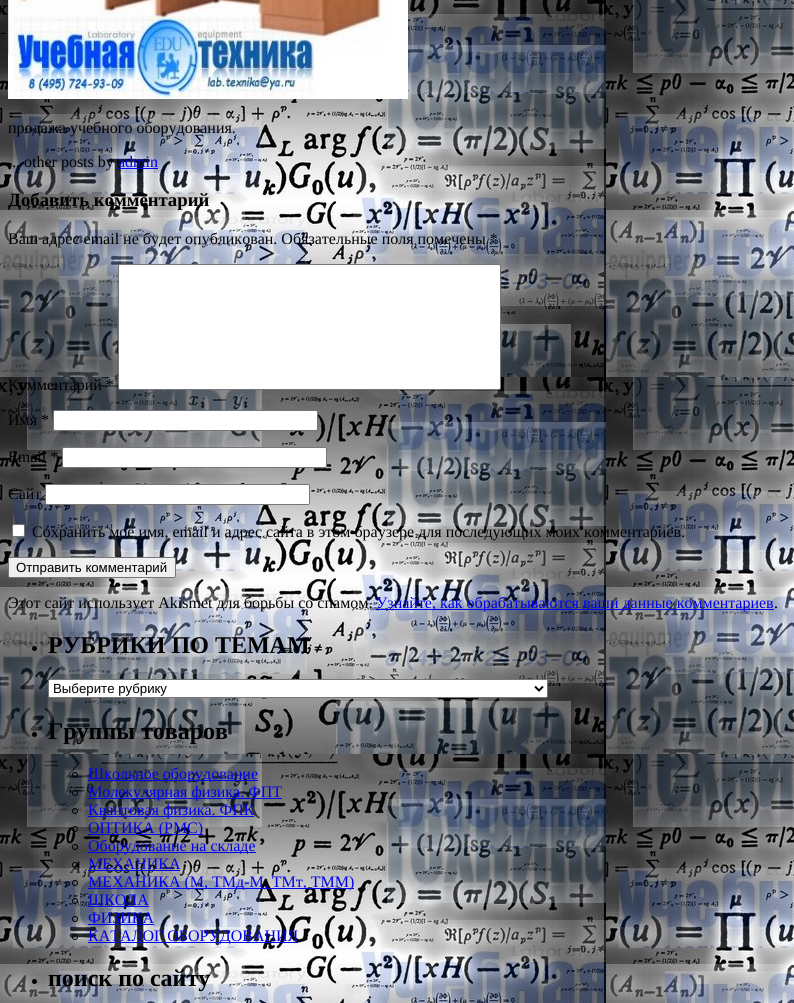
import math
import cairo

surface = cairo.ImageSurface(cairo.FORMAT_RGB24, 794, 1003)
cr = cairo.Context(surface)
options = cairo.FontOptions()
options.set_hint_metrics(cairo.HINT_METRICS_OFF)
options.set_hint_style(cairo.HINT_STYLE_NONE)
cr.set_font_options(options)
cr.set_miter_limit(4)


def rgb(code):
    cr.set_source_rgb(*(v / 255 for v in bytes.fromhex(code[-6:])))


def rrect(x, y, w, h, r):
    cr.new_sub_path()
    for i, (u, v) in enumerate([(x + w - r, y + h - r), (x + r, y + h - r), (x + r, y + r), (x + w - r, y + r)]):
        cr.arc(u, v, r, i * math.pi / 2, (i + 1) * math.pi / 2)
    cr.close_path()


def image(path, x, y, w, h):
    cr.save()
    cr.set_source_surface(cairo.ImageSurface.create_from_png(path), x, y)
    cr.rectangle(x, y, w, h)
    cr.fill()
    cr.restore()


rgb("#ffffff")
cr.paint()
image("img/1.png", 0, 0, 794, 1003)
image("img/2.png", 8, 0, 400, 99)
rgb("#0000ee")
cr.rectangle(118, 168, 40, 1)
cr.fill()
rgb("#ffffff")
rrect(118.5, 264.5, 382, 125, 1.5)
cr.fill_preserve()
rgb("#767676")
cr.set_line_width(1)
cr.stroke()
rgb("#ffffff")
rrect(53.5, 410.5, 264, 20, 1.5)
cr.fill_preserve()
rgb("#767676")
cr.stroke()
rgb("#ffffff")
rrect(62.5, 447.5, 264, 20, 1.5)
cr.fill_preserve()
rgb("#767676")
cr.stroke()
rgb("#ffffff")
rrect(45.5, 484.5, 264, 20, 1.5)
cr.fill_preserve()
rgb("#767676")
cr.stroke()
rgb("#ffffff")
rrect(12.5, 524.5, 12, 12, 1.5)
cr.fill_preserve()
rgb("#767676")
cr.stroke()
rgb("#efefef")
rrect(8.5, 557.5, 167, 20, 1.5)
cr.fill_preserve()
rgb("#767676")
cr.stroke()
rgb("#0000ee")
cr.rectangle(376, 609, 398, 1)
cr.fill()
rgb("#000000")
cr.arc(34.5, 648.5, 2.5, 0, 2 * math.pi)
cr.fill()
rgb("#ffffff")
rrect(48.5, 679.5, 499, 18, 1.5)
cr.fill_preserve()
rgb("#767676")
cr.stroke()
cr.new_path()
cr.move_to(535, 686.5)
cr.line_to(539, 690.5)
cr.line_to(543, 686.5)
rgb("#000000")
cr.set_line_width(2)
cr.stroke()
cr.arc(34.5, 734.5, 2.5, 0, 2 * math.pi)
cr.fill()
cr.arc(75, 775, 2.5, 0, 2 * math.pi)
cr.set_line_width(1)
cr.stroke()
rgb("#0000ee")
cr.rectangle(88, 780, 170, 1)
cr.fill()
cr.arc(75, 793, 2.5, 0, 2 * math.pi)
rgb("#000000")
cr.stroke()
rgb("#0000ee")
cr.rectangle(88, 798, 194, 1)
cr.fill()
cr.arc(75, 811, 2.5, 0, 2 * math.pi)
rgb("#000000")
cr.stroke()
rgb("#0000ee")
cr.rectangle(88, 816, 166, 1)
cr.fill()
cr.arc(75, 829, 2.5, 0, 2 * math.pi)
rgb("#000000")
cr.stroke()
rgb("#0000ee")
cr.rectangle(88, 834, 115, 1)
cr.fill()
cr.arc(75, 847, 2.5, 0, 2 * math.pi)
rgb("#000000")
cr.stroke()
rgb("#0000ee")
cr.rectangle(88, 852, 168, 1)
cr.fill()
cr.arc(75, 865, 2.5, 0, 2 * math.pi)
rgb("#000000")
cr.stroke()
rgb("#0000ee")
cr.rectangle(88, 870, 92, 1)
cr.fill()
cr.arc(75, 883, 2.5, 0, 2 * math.pi)
rgb("#000000")
cr.stroke()
rgb("#0000ee")
cr.rectangle(88, 888, 266, 1)
cr.fill()
cr.arc(75, 901, 2.5, 0, 2 * math.pi)
rgb("#000000")
cr.stroke()
rgb("#0000ee")
cr.rectangle(88, 906, 61, 1)
cr.fill()
cr.arc(75, 919, 2.5, 0, 2 * math.pi)
rgb("#000000")
cr.stroke()
rgb("#0000ee")
cr.rectangle(88, 924, 66, 1)
cr.fill()
cr.arc(75, 937, 2.5, 0, 2 * math.pi)
rgb("#000000")
cr.stroke()
rgb("#0000ee")
cr.rectangle(88, 942, 210, 1)
cr.fill()
rgb("#000000")
cr.arc(34.5, 981.5, 2.5, 0, 2 * math.pi)
cr.fill()
cr.select_font_face("Liberation Serif")
cr.set_font_size(16)
cr.move_to(8, 133)
cr.show_text("продажа учебного оборудования.")
cr.move_to(12, 167)
cr.show_text(".. other posts by")
rgb("#0000ee")
cr.move_to(118, 167)
cr.show_text("admin")
cr.select_font_face("Liberation Serif", cairo.FONT_SLANT_NORMAL, cairo.FONT_WEIGHT_BOLD)
cr.set_font_size(18.75)
rgb("#000000")
cr.move_to(8, 206)
cr.show_text("Добавить комментарий")
cr.select_font_face("Liberation Serif")
cr.set_font_size(16)
for x, y, s in [
    (8, 244, "Ваш адрес email не будет опубликован. Обязательные поля помечены *"),
    (8, 390, "Комментарий *"),
    (8, 425, "Имя *"),
    (8, 462, "Email *"),
    (8, 499, "Сайт"),
    (32, 537, "Сохранить моё имя, email и адрес сайта в этом браузере для последующих моих комментариев."),
]:
    cr.move_to(x, y)
    cr.show_text(s)
cr.select_font_face("Liberation Sans")
cr.set_font_size(13.25)
cr.move_to(16, 572)
cr.show_text("Отправить комментарий")
cr.select_font_face("Liberation Serif")
cr.set_font_size(16)
cr.move_to(8, 608)
cr.show_text("Этот сайт использует Akismet для борьбы со спамом.")
rgb("#0000ee")
cr.move_to(376, 608)
cr.show_text("Узнайте, как обрабатываются ваши данные комментариев")
rgb("#000000")
cr.move_to(774, 608)
cr.show_text(".")
cr.select_font_face("Liberation Serif", cairo.FONT_SLANT_NORMAL, cairo.FONT_WEIGHT_BOLD)
cr.set_font_size(24)
cr.move_to(48, 653)
cr.show_text("РУБРИКИ ПО ТЕМАМ")
cr.select_font_face("Liberation Sans")
cr.set_font_size(13.25)
cr.move_to(53, 693)
cr.show_text("Выберите рубрику")
cr.select_font_face("Liberation Serif", cairo.FONT_SLANT_NORMAL, cairo.FONT_WEIGHT_BOLD)
cr.set_font_size(24)
cr.move_to(48, 739)
cr.show_text("Группы товаров")
cr.select_font_face("Liberation Serif")
cr.set_font_size(16)
rgb("#0000ee")
for x, y, s in [
    (88, 779, "Школьное оборудование"),
    (88, 797, "Молекулярная физика. ФПТ"),
    (88, 815, "Квантовая физика. ФПК"),
    (88, 833, "ОПТИКА (РМС)"),
    (88, 851, "Оборудование на складе"),
    (88, 869, "МЕХАНИКА"),
    (88, 887, "МЕХАНИКА (М, ТМд-М, ТМт, ТММ)"),
    (88, 905, "ШКОЛА"),
    (88, 923, "ФИЗИКА"),
    (88, 941, "КАТАЛОГ ОБОРУДОВАНИЯ"),
]:
    cr.move_to(x, y)
    cr.show_text(s)
cr.select_font_face("Liberation Serif", cairo.FONT_SLANT_NORMAL, cairo.FONT_WEIGHT_BOLD)
cr.set_font_size(24)
rgb("#000000")
cr.move_to(48, 986)
cr.show_text("поиск по сайту")
surface.write_to_png("page.png")
